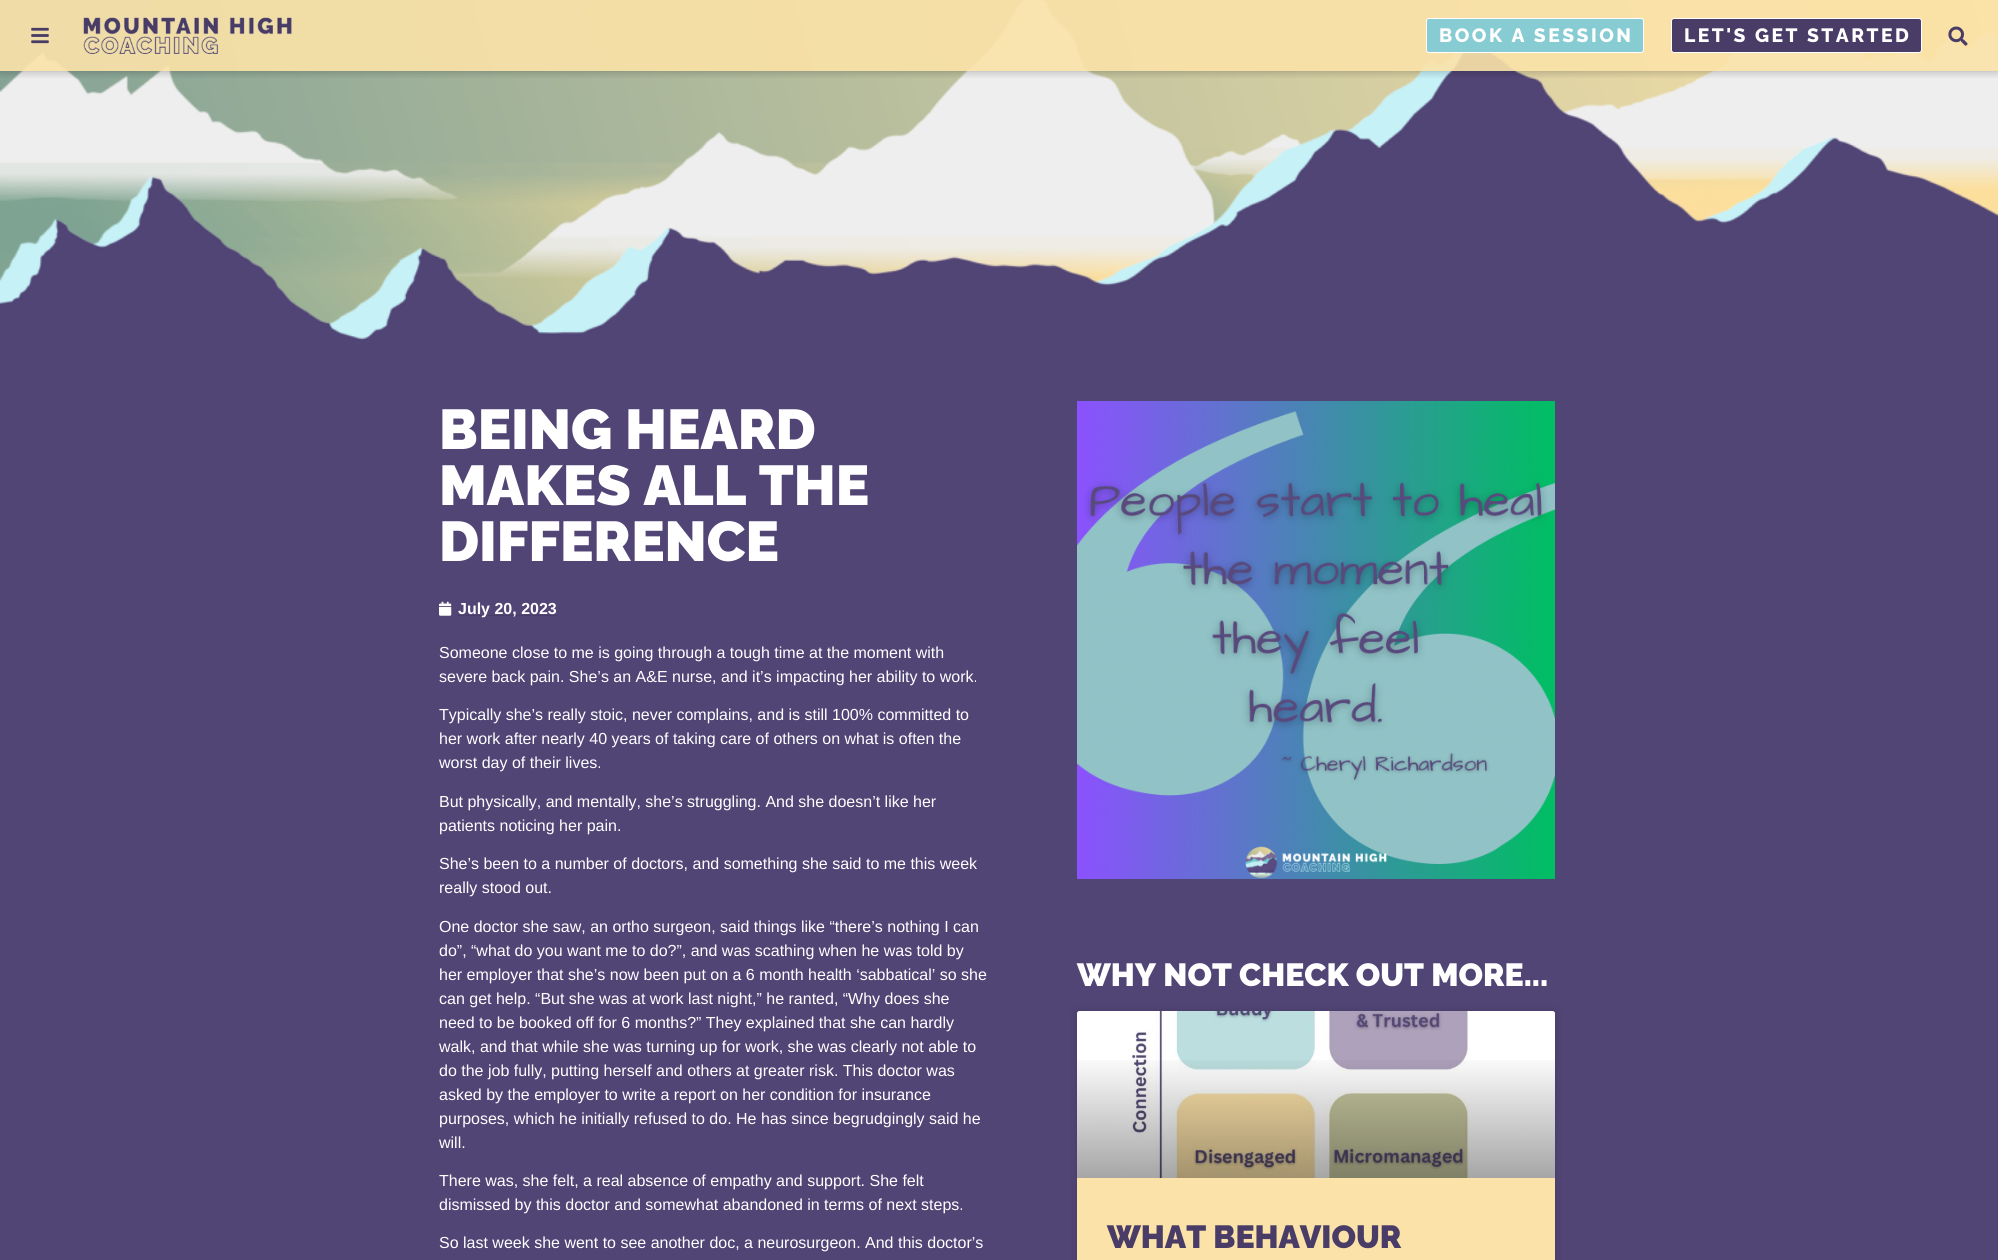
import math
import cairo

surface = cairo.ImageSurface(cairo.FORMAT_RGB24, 1998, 1260)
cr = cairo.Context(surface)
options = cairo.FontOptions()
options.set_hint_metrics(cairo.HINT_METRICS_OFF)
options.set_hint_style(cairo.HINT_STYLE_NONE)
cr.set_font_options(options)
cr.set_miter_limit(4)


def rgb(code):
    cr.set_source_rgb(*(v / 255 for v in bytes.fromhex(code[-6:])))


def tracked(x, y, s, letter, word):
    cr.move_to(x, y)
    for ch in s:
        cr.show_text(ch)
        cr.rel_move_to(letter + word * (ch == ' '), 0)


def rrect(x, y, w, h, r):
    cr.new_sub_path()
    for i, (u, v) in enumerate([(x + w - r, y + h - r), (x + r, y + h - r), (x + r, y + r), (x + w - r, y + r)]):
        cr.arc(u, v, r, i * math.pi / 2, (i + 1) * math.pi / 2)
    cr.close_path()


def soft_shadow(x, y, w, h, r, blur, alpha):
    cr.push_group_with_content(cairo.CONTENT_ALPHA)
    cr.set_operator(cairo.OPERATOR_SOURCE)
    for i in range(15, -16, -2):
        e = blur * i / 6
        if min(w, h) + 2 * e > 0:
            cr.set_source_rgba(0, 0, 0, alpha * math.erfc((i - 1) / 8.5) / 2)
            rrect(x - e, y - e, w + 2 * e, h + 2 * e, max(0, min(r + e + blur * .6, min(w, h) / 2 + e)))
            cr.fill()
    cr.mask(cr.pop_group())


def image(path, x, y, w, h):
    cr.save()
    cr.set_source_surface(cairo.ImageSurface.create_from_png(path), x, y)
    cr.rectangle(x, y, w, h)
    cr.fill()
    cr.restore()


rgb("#ffffff")
cr.paint()
gradient = cairo.LinearGradient(-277, 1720, 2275, 1035)
gradient.add_color_stop_rgba(0.26, 0.522, 0.639, 0.584, 1)
gradient.add_color_stop_rgba(1, 0.984, 0.886, 0.659, 1)
cr.set_source(gradient)
cr.rectangle(0, 0, 1998, 328)
cr.fill()
image("img/4.png", 0, 0, 1998, 328)
image("img/5.png", 0, 53, 1998, 338)
cr.save()
cr.rectangle(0, 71, 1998, 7)
cr.clip()
rgb("#000000")
soft_shadow(0, 0, 1998, 71, 0, 5, 0.3)
cr.restore()
cr.set_source_rgba(0.984, 0.886, 0.659, 0.9)
cr.rectangle(0, 0, 1998, 71)
cr.fill()
image("img/1.png", 31, 27, 18, 17)
image("img/2.png", 83, 17, 209, 38)
rgb("#87cbd3")
rrect(1426.5, 18.5, 217, 34, 2.5)
cr.fill_preserve()
rgb("#ffffff")
cr.set_line_width(1)
cr.stroke()
rgb("#493d67")
rrect(1671.5, 18.5, 250, 34, 2.5)
cr.fill_preserve()
rgb("#ffffff")
cr.stroke()
image("img/3.png", 1948, 26, 20, 20)
rgb("#514576")
cr.rectangle(0, 391, 1998, 869)
cr.fill()
rgb("#493d67")
cr.rectangle(439, 615, 12, 1)
cr.fill()
image("img/6.png", 439, 601, 13, 15)
cr.rectangle(458, 615, 99, 1)
cr.fill()
image("img/7.png", 1077, 401, 478, 478)
rgb("#000000")
soft_shadow(1077, 1011, 478, 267, 3, 5, 0.15)
rgb("#fbe2a8")
rrect(1077, 1011, 478, 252, 3)
cr.fill()
image("img/8.png", 1077, 1011, 478, 167)
gradient = cairo.LinearGradient(1316, 1178, 1316, 1011)
gradient.add_color_stop_rgba(0, 0, 0, 0, 0.35)
gradient.add_color_stop_rgba(0.75, 0, 0, 0, 0)
cr.set_source(gradient)
cr.rectangle(1077, 1060, 478, 118)
cr.fill()
cr.select_font_face("Raleway ExtraBold")
cr.set_font_size(19.25)
rgb("#ffffff")
tracked(1439, 42, "BOOK A SESSION", 2.5, 0)
tracked(1684, 42, "LET'S GET STARTED", 2.5, 0)
cr.select_font_face("Raleway Black")
cr.set_font_size(56)
for x, y, s in [
    (439, 449, "BEING HEARD"),
    (439, 505, "MAKES ALL THE"),
    (439, 561, "DIFFERENCE"),
]:
    cr.move_to(x, y)
    cr.show_text(s)
cr.select_font_face("Liberation Sans", cairo.FONT_SLANT_NORMAL, cairo.FONT_WEIGHT_BOLD)
cr.set_font_size(16)
cr.move_to(458, 614)
cr.show_text("July 20, 2023")
cr.select_font_face("Liberation Sans")
for x, y, s in [
    (439, 658, "Someone close to me is going through a tough time at the moment with"),
    (439, 682, "severe back pain. She’s an A&E nurse, and it’s impacting her ability to work."),
    (439, 720, "Typically she’s really stoic, never complains, and is still 100% committed to"),
    (439, 744, "her work after nearly 40 years of taking care of others on what is often the"),
    (439, 768, "worst day of their lives."),
    (439, 807, "But physically, and mentally, she’s struggling. And she doesn’t like her"),
    (439, 831, "patients noticing her pain."),
    (439, 869, "She’s been to a number of doctors, and something she said to me this week"),
    (439, 893, "really stood out."),
    (439, 932, "One doctor she saw, an ortho surgeon, said things like “there’s nothing I can"),
    (439, 956, "do”, “what do you want me to do?”, and was scathing when he was told by"),
    (439, 980, "her employer that she’s now been put on a 6 month health ‘sabbatical’ so she"),
    (439, 1004, "can get help. “But she was at work last night,” he ranted, “Why does she"),
    (439, 1028, "need to be booked off for 6 months?” They explained that she can hardly"),
    (439, 1052, "walk, and that while she was turning up for work, she was clearly not able to"),
    (439, 1076, "do the job fully, putting herself and others at greater risk. This doctor was"),
    (439, 1100, "asked by the employer to write a report on her condition for insurance"),
    (439, 1124, "purposes, which he initially refused to do. He has since begrudgingly said he"),
    (439, 1148, "will."),
    (439, 1186, "There was, she felt, a real absence of empathy and support. She felt"),
    (439, 1210, "dismissed by this doctor and somewhat abandoned in terms of next steps."),
    (439, 1248, "So last week she went to see another doc, a neurosurgeon. And this doctor’s"),
]:
    cr.move_to(x, y)
    cr.show_text(s)
cr.select_font_face("Raleway Black")
cr.set_font_size(32)
cr.move_to(1077, 986)
cr.show_text("WHY NOT CHECK OUT MORE...")
rgb("#493d67")
cr.move_to(1107, 1248)
cr.show_text("WHAT BEHAVIOUR")
surface.write_to_png("page.png")
